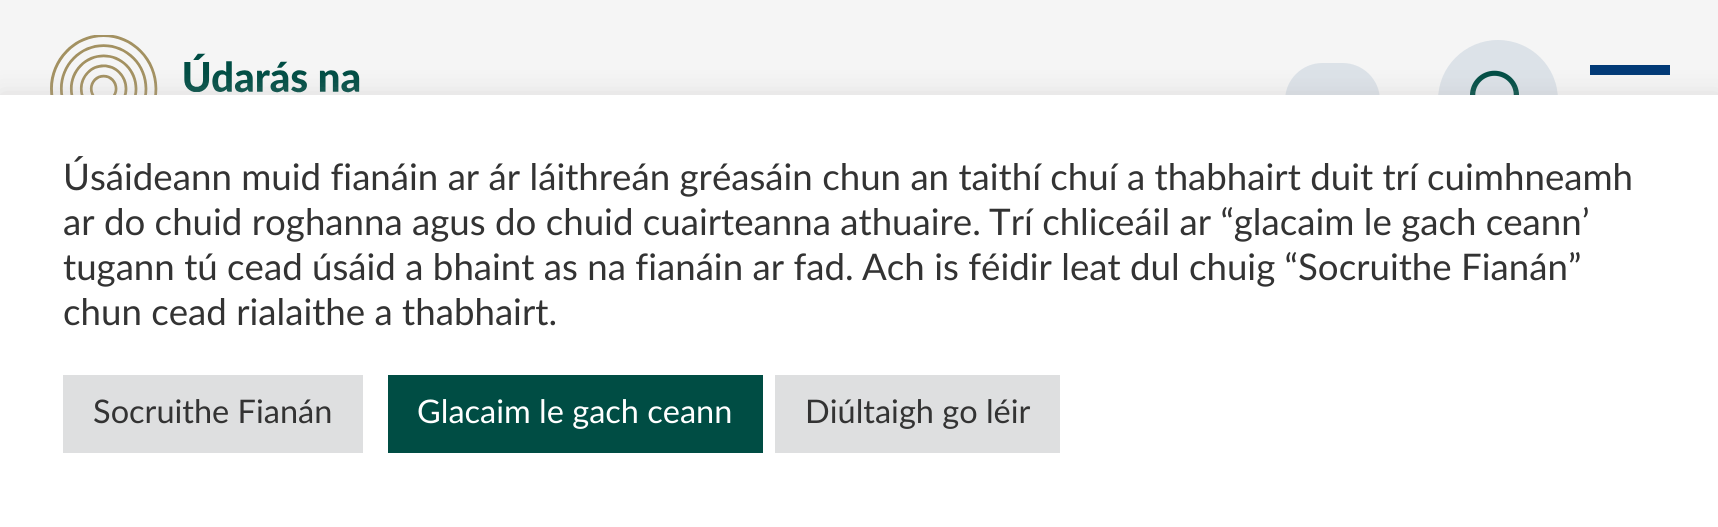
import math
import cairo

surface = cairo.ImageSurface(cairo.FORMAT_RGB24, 1718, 527)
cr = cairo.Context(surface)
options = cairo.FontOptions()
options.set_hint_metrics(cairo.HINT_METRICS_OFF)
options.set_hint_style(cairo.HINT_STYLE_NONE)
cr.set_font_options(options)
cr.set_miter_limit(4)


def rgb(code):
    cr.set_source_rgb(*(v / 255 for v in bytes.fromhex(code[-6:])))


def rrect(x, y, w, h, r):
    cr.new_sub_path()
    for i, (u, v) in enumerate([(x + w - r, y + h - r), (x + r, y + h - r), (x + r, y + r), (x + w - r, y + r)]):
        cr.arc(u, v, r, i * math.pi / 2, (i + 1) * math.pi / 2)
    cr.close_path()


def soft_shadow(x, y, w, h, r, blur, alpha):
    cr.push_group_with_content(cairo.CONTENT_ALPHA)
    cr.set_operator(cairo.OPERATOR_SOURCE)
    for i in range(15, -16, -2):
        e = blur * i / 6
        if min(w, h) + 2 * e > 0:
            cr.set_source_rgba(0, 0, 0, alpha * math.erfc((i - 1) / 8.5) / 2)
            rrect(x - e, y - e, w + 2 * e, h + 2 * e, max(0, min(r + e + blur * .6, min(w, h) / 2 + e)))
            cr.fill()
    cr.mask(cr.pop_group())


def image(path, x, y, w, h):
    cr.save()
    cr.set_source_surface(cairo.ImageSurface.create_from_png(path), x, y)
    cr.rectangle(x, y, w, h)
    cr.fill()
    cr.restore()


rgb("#f5f5f5")
cr.paint()
image("img/1.png", 50, 35, 310, 60)
rgb("#dce2e8")
rrect(1285, 63, 95, 75, 37.5)
cr.fill()
cr.arc(1498, 100, 60, 0, 2 * math.pi)
cr.fill()
image("img/2.png", 1470, 70, 49, 25)
rgb("#003976")
cr.rectangle(1590, 65, 80, 10)
cr.fill()
rgb("#acabab")
soft_shadow(0, 93, 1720, 432, 0, 12.5, 0.3)
for x, y, w, h, color in [
    (0, 95, 1718, 432, "#ffffff"),
    (63, 375, 300, 78, "#dedfe0"),
    (388, 375, 375, 78, "#004d44"),
    (775, 375, 285, 78, "#dedfe0"),
]:
    rgb(color)
    cr.rectangle(x, y, w, h)
    cr.fill()
cr.select_font_face("Lato")
cr.set_font_size(36.65)
rgb("#333333")
for x, y, s in [
    (63, 190, "Úsáideann muid fianáin ar ár láithreán gréasáin chun an taithí chuí a thabhairt duit trí cuimhneamh"),
    (63, 235, "ar do chuid roghanna agus do chuid cuairteanna athuaire."),
    (989, 235, "Trí chliceáil ar “glacaim le gach ceann’"),
    (63, 280, "tugann tú cead úsáid a bhaint as na fianáin ar fad."),
    (862, 280, "Ach is féidir leat dul chuig “Socruithe Fianán”"),
    (63, 325, "chun cead rialaithe a thabhairt."),
]:
    cr.move_to(x, y)
    cr.show_text(s)
cr.set_font_size(32.5)
cr.move_to(93, 423)
cr.show_text("Socruithe Fianán")
rgb("#ffffff")
cr.move_to(417, 423)
cr.show_text("Glacaim le gach ceann")
rgb("#333333")
cr.move_to(805, 423)
cr.show_text("Diúltaigh go léir")
surface.write_to_png("page.png")
